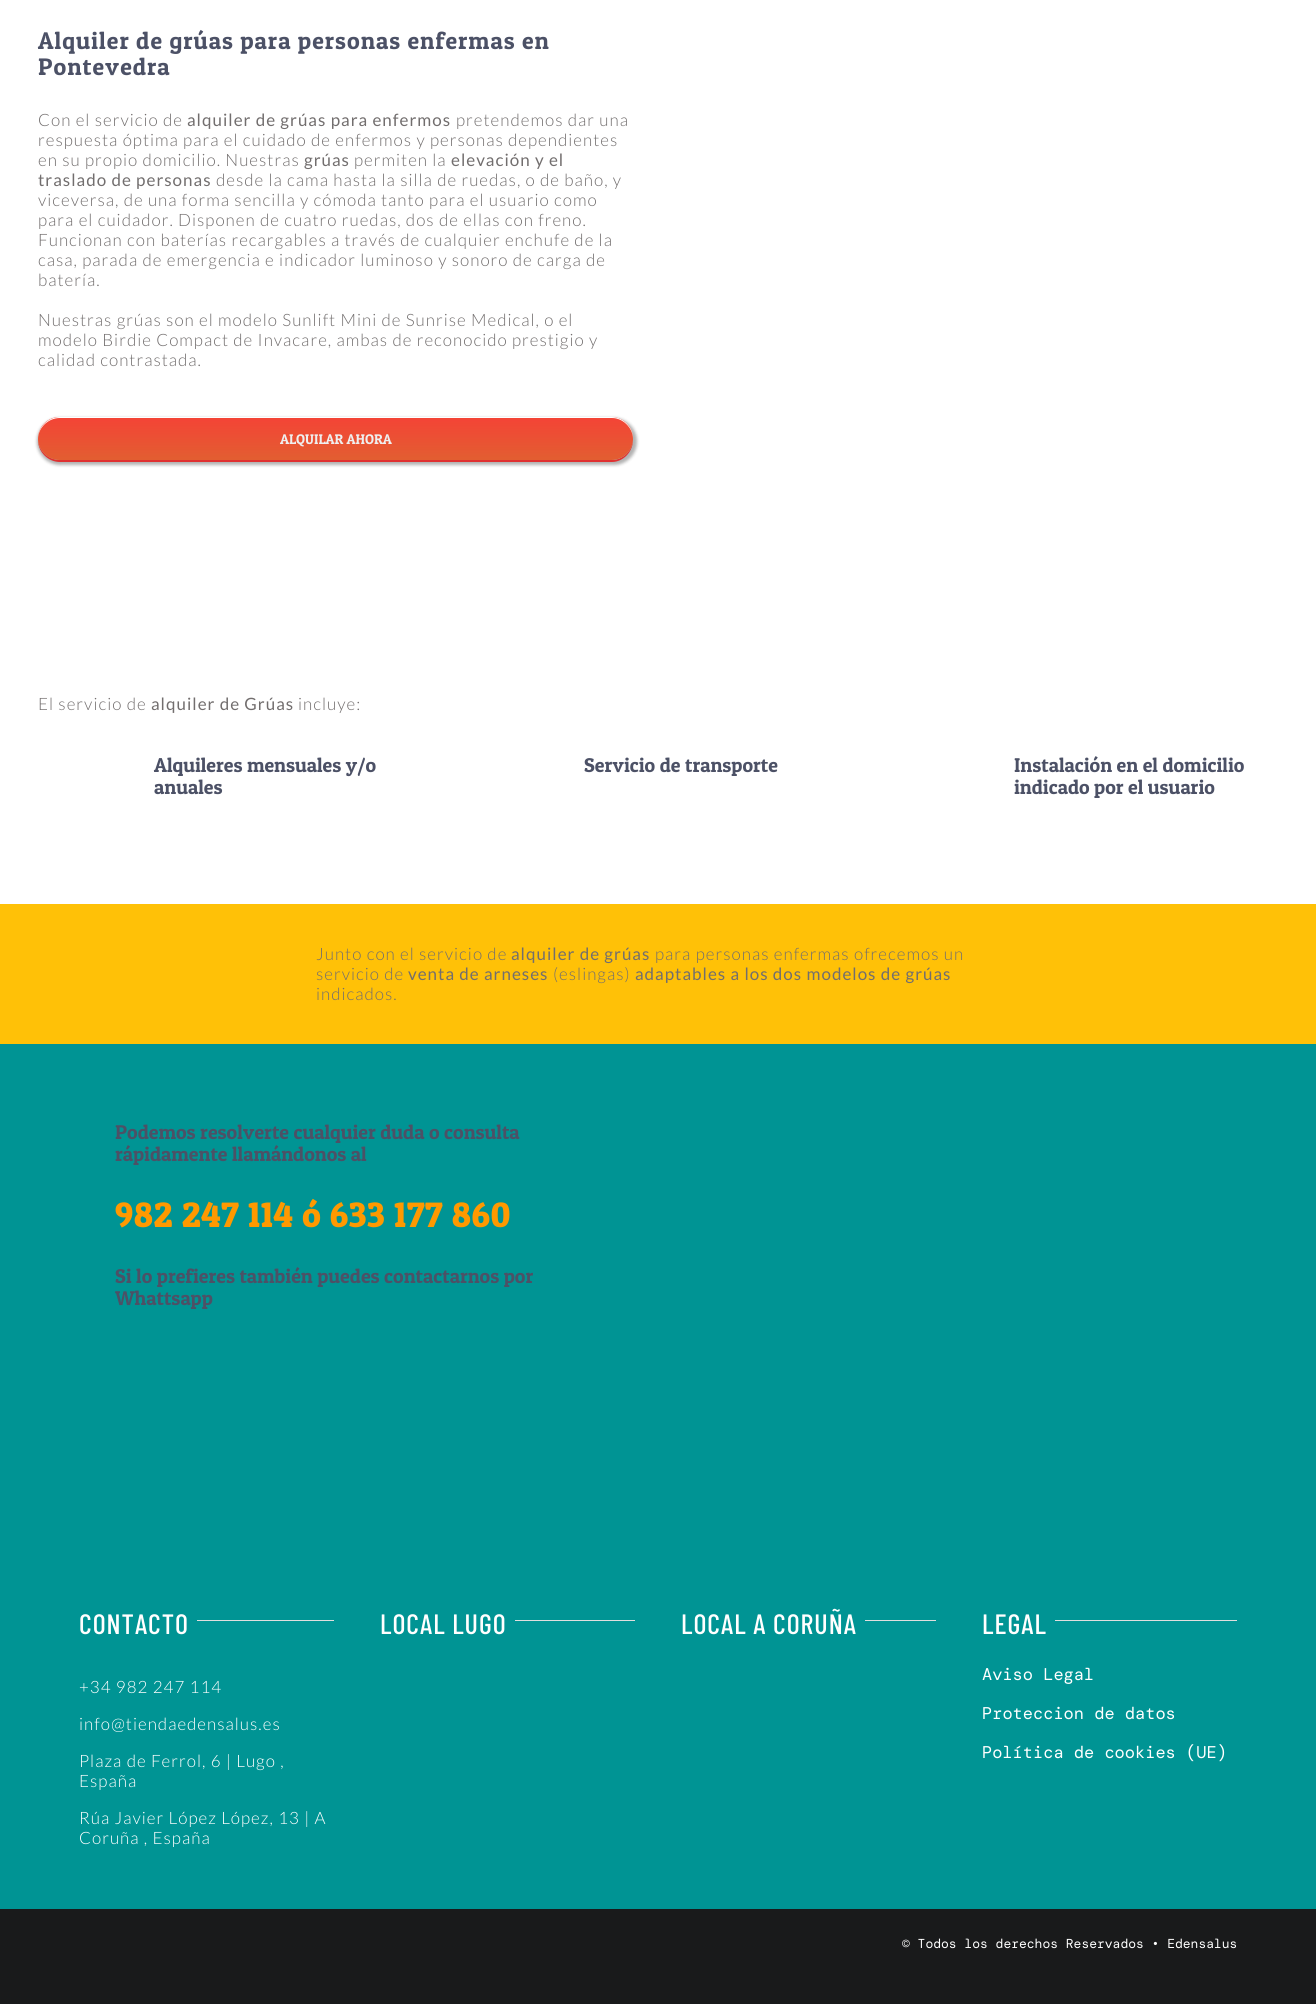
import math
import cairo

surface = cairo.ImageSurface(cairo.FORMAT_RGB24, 1316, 2004)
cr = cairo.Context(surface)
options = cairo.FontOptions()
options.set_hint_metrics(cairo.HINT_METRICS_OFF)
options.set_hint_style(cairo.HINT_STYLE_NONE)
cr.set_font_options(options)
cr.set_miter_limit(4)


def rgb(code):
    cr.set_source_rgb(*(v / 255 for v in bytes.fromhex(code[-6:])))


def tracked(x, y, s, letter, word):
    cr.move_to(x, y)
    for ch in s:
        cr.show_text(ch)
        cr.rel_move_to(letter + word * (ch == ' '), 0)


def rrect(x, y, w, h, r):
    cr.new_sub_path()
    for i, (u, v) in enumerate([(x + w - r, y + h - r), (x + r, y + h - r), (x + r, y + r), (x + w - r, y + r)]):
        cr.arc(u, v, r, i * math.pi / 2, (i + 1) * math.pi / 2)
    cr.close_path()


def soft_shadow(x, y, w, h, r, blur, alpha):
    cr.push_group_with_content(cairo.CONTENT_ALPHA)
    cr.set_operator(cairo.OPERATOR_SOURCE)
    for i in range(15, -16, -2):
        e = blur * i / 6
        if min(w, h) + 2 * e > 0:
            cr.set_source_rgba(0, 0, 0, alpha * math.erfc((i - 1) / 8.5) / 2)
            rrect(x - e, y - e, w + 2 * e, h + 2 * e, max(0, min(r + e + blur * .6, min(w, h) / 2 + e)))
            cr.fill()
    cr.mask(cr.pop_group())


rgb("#ffffff")
cr.paint()
rgb("#000000")
soft_shadow(37, 418, 600, 47, 23.5, 1.5, 0.3)
rgb("#e03131")
cr.new_path()
cr.move_to(38, 440)
cr.curve_to(38, 452, 48, 462, 60, 462)
cr.line_to(612, 462)
cr.curve_to(623, 462, 633, 452, 633, 440)
cr.curve_to(632, 451, 623, 460, 612, 460)
cr.line_to(60, 460)
cr.curve_to(48, 460, 39, 451, 38, 440)
cr.close_path()
cr.fill()
gradient = cairo.LinearGradient(336, 417, 336, 460)
gradient.add_color_stop_rgba(0, 0.957, 0.263, 0.212, 1)
gradient.add_color_stop_rgba(1, 0.886, 0.369, 0.192, 1)
cr.set_source(gradient)
rrect(38, 417, 595, 43, 21.5)
cr.fill()
rgb("#ffffff")
cr.new_path()
cr.move_to(60, 418)
cr.line_to(612, 418)
cr.curve_to(623, 418, 633, 428, 633, 439)
cr.line_to(633, 438)
cr.curve_to(633, 427, 623, 417, 612, 417)
cr.line_to(60, 417)
cr.curve_to(48, 417, 38, 427, 38, 438)
cr.line_to(38, 439)
cr.curve_to(38, 428, 48, 418, 60, 418)
cr.close_path()
cr.fill()
for x, y, w, h, color in [
    (0, 904, 1316, 140, "#ffc107"),
    (0, 1044, 1316, 865, "#009494"),
    (197, 1620, 137, 1, "#e0dede"),
    (515, 1620, 120, 1, "#e0dede"),
    (865, 1620, 71, 1, "#e0dede"),
    (1055, 1620, 182, 1, "#e0dede"),
    (0, 1909, 1316, 95, "#191a1b"),
]:
    rgb(color)
    cr.rectangle(x, y, w, h)
    cr.fill()
cr.select_font_face("Patua One")
cr.set_font_size(24)
rgb("#4c5166")
tracked(38, 49, "Alquiler de grúas para personas enfermas en", 1, 0)
tracked(38, 75, "Pontevedra", 1, 0)
cr.select_font_face("Lato Light")
cr.set_font_size(17)
rgb("#726e6e")
tracked(38, 126, "Con el servicio de", 1, 0)
cr.select_font_face("Lato")
tracked(187, 126, "alquiler de grúas para enfermos", 1, 0)
cr.select_font_face("Lato Light")
for x, y, s in [
    (456, 126, "pretendemos dar una"),
    (38, 146, "respuesta óptima para el cuidado de enfermos y personas dependientes"),
    (38, 166, "en su propio domicilio. Nuestras"),
]:
    tracked(x, y, s, 1, 0)
cr.select_font_face("Lato")
tracked(304, 166, "grúas", 1, 0)
cr.select_font_face("Lato Light")
tracked(354, 166, "permiten la", 1, 0)
cr.select_font_face("Lato")
tracked(451, 166, "elevación y el", 1, 0)
tracked(38, 186, "traslado de personas", 1, 0)
cr.select_font_face("Lato Light")
for x, y, s in [
    (216, 186, "desde la cama hasta la silla de ruedas, o de baño, y"),
    (38, 206, "viceversa, de una forma sencilla y cómoda tanto para el usuario como"),
    (38, 226, "para el cuidador. Disponen de cuatro ruedas, dos de ellas con freno."),
    (38, 246, "Funcionan con baterías recargables a través de cualquier enchufe de la"),
    (38, 266, "casa, parada de emergencia e indicador luminoso y sonoro de carga de"),
    (38, 286, "batería."),
    (38, 326, "Nuestras grúas son el modelo Sunlift Mini de Sunrise Medical, o el"),
    (38, 346, "modelo Birdie Compact de Invacare, ambas de reconocido prestigio y"),
    (38, 366, "calidad contrastada."),
]:
    tracked(x, y, s, 1, 0)
cr.select_font_face("Patua One")
cr.set_font_size(14)
rgb("#efefef")
cr.move_to(280, 444)
cr.show_text("ALQUILAR AHORA")
cr.select_font_face("Lato Light")
cr.set_font_size(17)
rgb("#726e6e")
tracked(38, 710, "El servicio de", 1, 0)
cr.select_font_face("Lato")
tracked(151, 710, "alquiler de Grúas", 1, 0)
cr.select_font_face("Lato Light")
tracked(298, 710, "incluye:", 1, 0)
cr.select_font_face("Patua One")
cr.set_font_size(20)
rgb("#4c5166")
for x, y, s in [
    (154, 772, "Alquileres mensuales y/o"),
    (154, 794, "anuales"),
    (584, 772, "Servicio de transporte"),
    (1014, 772, "Instalación en el domicilio"),
    (1014, 794, "indicado por el usuario"),
]:
    cr.move_to(x, y)
    cr.show_text(s)
cr.select_font_face("Lato Light")
cr.set_font_size(17)
rgb("#726e6e")
tracked(316, 960, "Junto con el servicio de", 1, 0)
cr.select_font_face("Lato")
tracked(511, 960, "alquiler de grúas", 1, 0)
cr.select_font_face("Lato Light")
tracked(655, 960, "para personas enfermas ofrecemos un", 1, 0)
tracked(316, 980, "servicio de", 1, 0)
cr.select_font_face("Lato")
tracked(408, 980, "venta de arneses", 1, 0)
cr.select_font_face("Lato Light")
tracked(553, 980, "(eslingas)", 1, 0)
cr.select_font_face("Lato")
tracked(635, 980, "adaptables a los dos modelos de grúas", 1, 0)
cr.select_font_face("Lato Light")
tracked(316, 1000, "indicados.", 1, 0)
cr.select_font_face("Patua One")
cr.set_font_size(20)
rgb("#4c5166")
cr.move_to(115, 1139)
cr.show_text("Podemos resolverte cualquier duda o consulta")
cr.move_to(115, 1161)
cr.show_text("rápidamente llamándonos al")
cr.select_font_face("Patua One", cairo.FONT_SLANT_NORMAL, cairo.FONT_WEIGHT_BOLD)
cr.set_font_size(34)
rgb("#ff9900")
tracked(115, 1227, "982 247 114 ó 633 177 860", 1, 0)
cr.select_font_face("Patua One")
cr.set_font_size(20)
rgb("#4c5166")
cr.move_to(115, 1283)
cr.show_text("Si lo prefieres también puedes contactarnos por")
cr.move_to(115, 1305)
cr.show_text("Whattsapp")
cr.select_font_face("Barlow Condensed Medium")
cr.set_font_size(28)
rgb("#ffffff")
tracked(79, 1634, "CONTACTO", 1, 0)
cr.select_font_face("Lato Light")
cr.set_font_size(17)
for x, y, s in [
    (79, 1693, "+34 982 247 114"),
    (79, 1730, "info@tiendaedensalus.es"),
    (79, 1767, "Plaza de Ferrol, 6 | Lugo ,"),
    (79, 1787, "España"),
    (79, 1824, "Rúa Javier López López, 13 | A"),
    (79, 1844, "Coruña , España"),
]:
    tracked(x, y, s, 1, 0)
cr.select_font_face("Barlow Condensed Medium")
cr.set_font_size(28)
for x, y, s in [
    (380, 1634, "LOCAL LUGO"),
    (681, 1634, "LOCAL A CORUÑA"),
    (982, 1634, "LEGAL"),
]:
    tracked(x, y, s, 1, 0)
cr.select_font_face("DM Mono")
cr.set_font_size(17)
for x, y, s in [
    (982, 1680, "Aviso Legal"),
    (982, 1719, "Proteccion de datos"),
    (982, 1758, "Política de cookies (UE)"),
]:
    cr.move_to(x, y)
    cr.show_text(s)
cr.set_font_size(13)
cr.move_to(902, 1948)
cr.show_text("© Todos los derechos Reservados • Edensalus")
surface.write_to_png("page.png")
